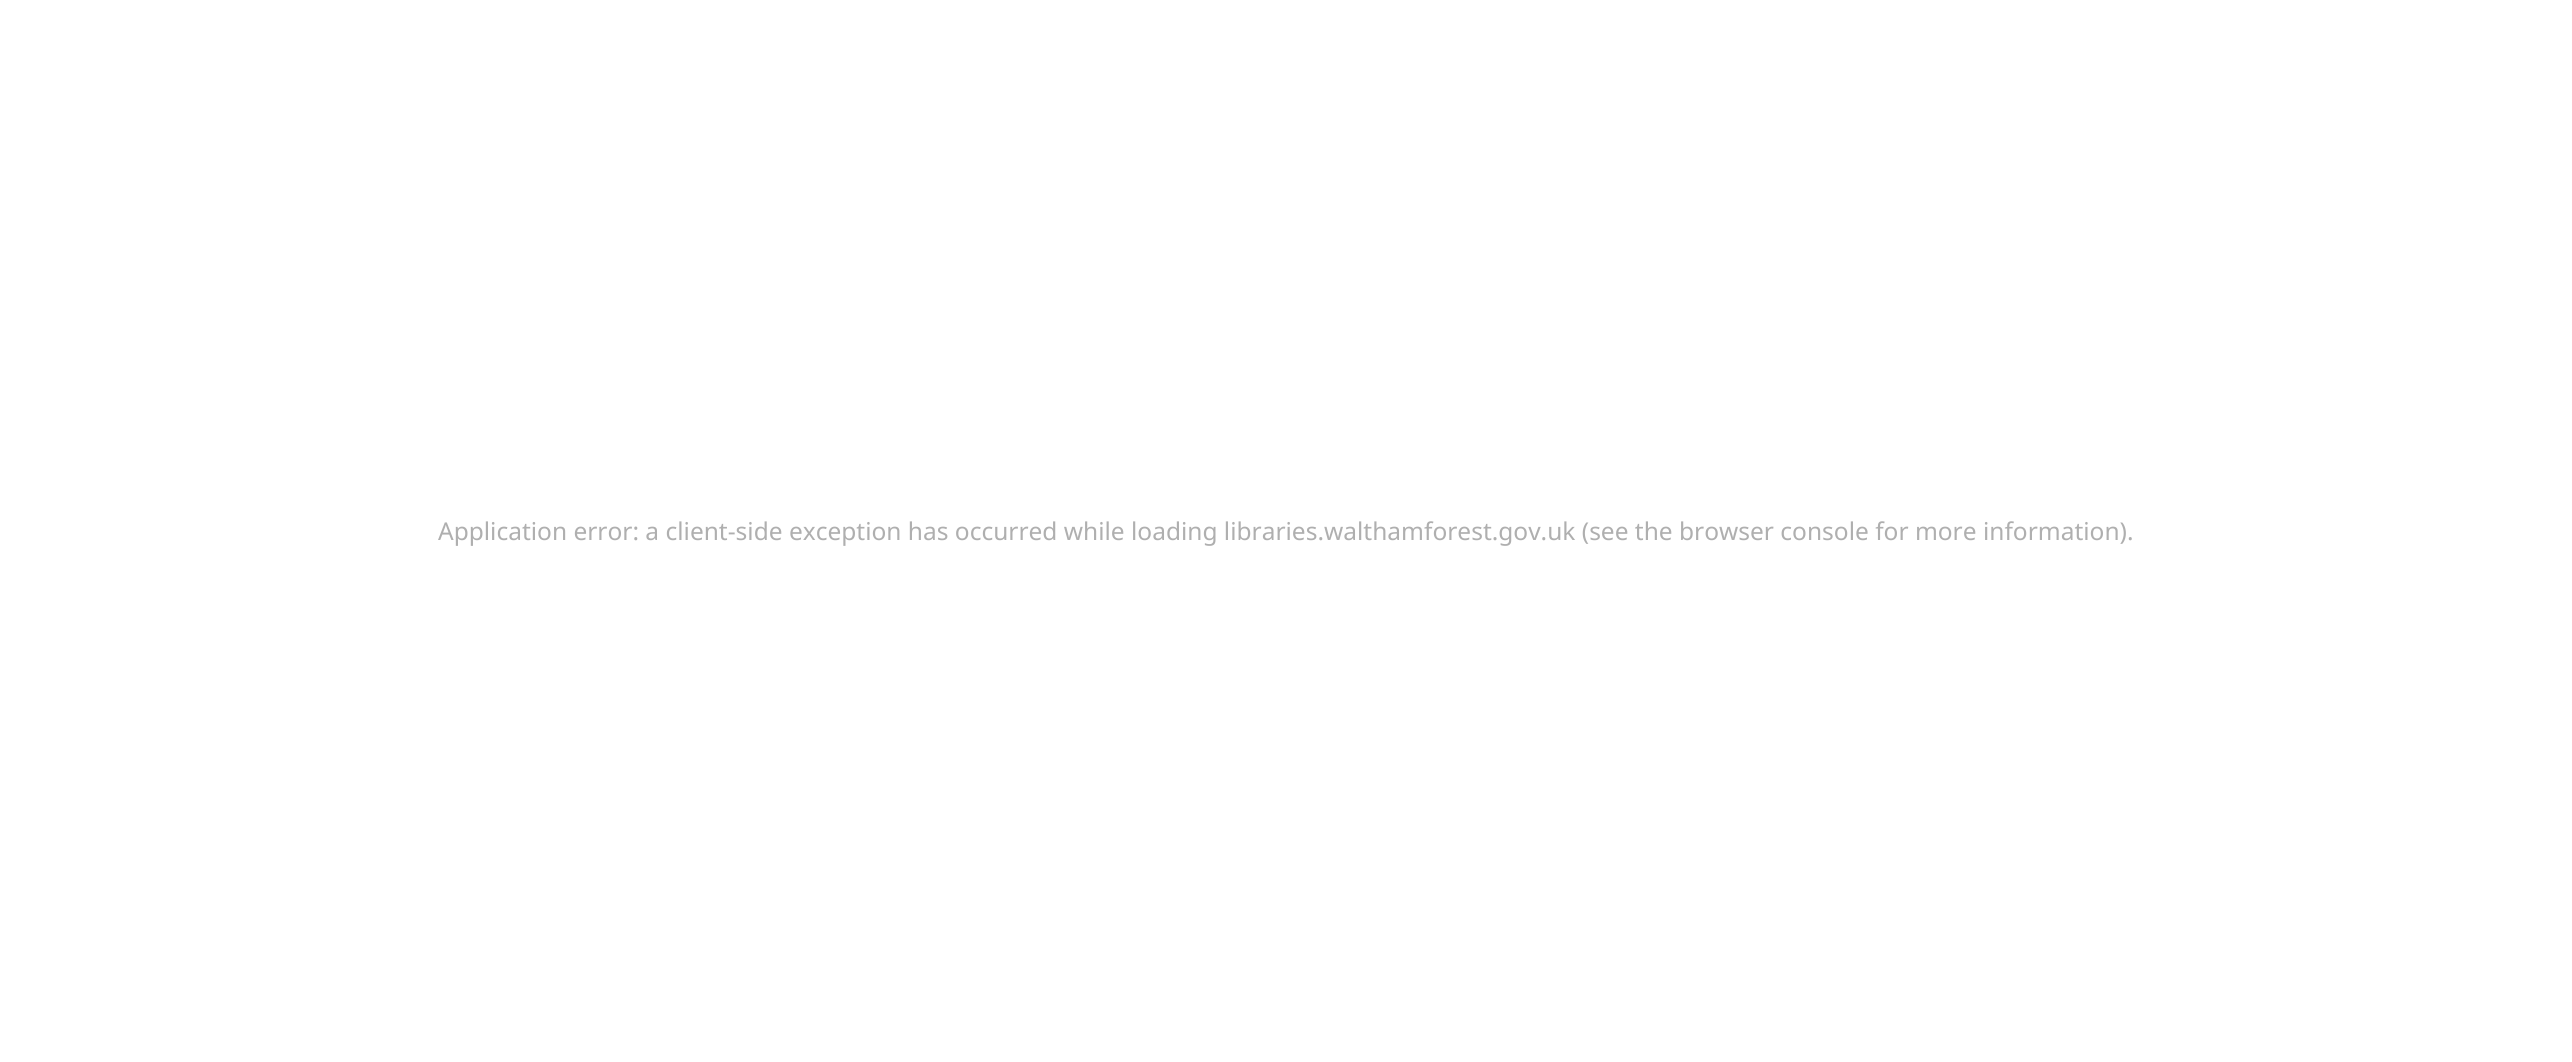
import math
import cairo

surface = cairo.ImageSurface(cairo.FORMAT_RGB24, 2572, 1062)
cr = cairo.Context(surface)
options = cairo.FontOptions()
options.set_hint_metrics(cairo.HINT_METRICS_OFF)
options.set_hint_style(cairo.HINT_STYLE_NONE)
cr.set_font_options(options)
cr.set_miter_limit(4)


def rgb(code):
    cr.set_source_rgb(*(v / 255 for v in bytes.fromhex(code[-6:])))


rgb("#ffffff")
cr.paint()
cr.select_font_face("Noto Sans")
cr.set_font_size(24.5)
rgb("#afafaf")
cr.move_to(438, 540)
cr.show_text("Application error: a client-side exception has occurred while loading libraries.walthamforest.gov.uk (see the browser console for more information).")
surface.write_to_png("page.png")
